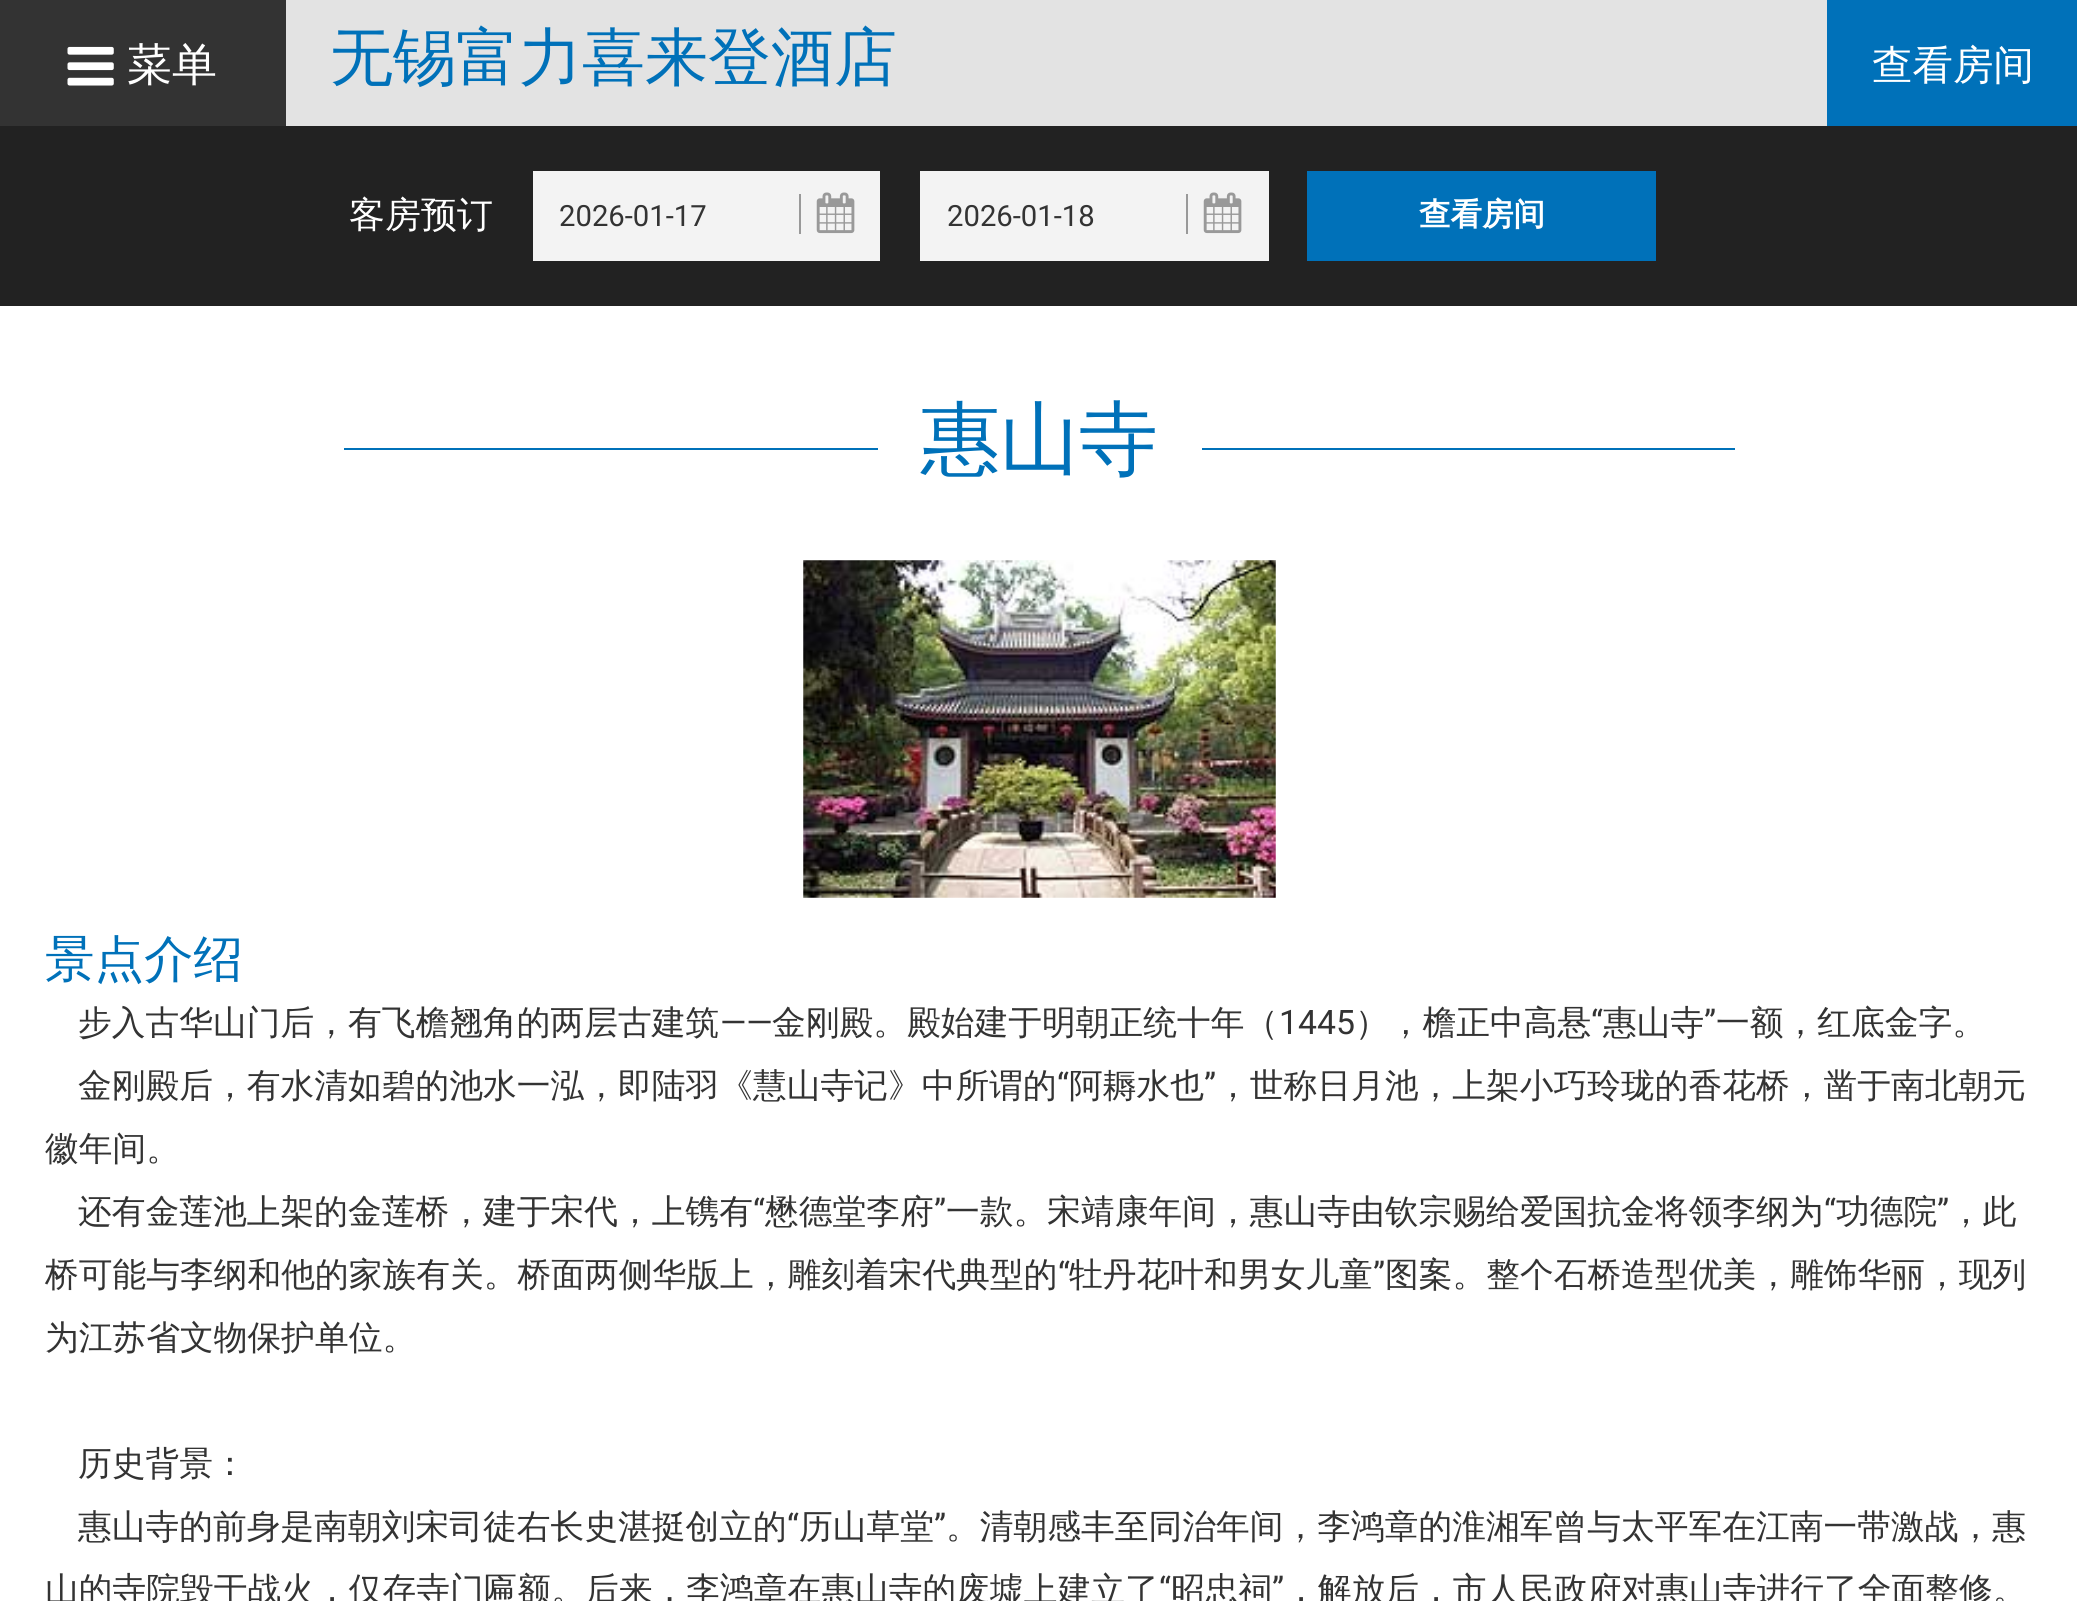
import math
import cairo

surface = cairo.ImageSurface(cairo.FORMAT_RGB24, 2077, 1601)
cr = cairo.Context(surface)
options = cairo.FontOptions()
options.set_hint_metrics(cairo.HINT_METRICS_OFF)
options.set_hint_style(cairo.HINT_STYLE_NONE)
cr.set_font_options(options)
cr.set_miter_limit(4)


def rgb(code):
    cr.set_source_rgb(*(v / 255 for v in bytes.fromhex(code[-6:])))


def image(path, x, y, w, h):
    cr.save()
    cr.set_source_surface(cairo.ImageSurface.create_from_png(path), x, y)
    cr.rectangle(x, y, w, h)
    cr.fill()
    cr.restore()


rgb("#ffffff")
cr.paint()
rgb("#e3e3e3")
cr.rectangle(286, 0, 1541, 126)
cr.fill()
rgb("#333333")
cr.rectangle(0, 0, 286, 126)
cr.fill()
image("img/1.png", 67, 46, 47, 40)
for x, y, w, h, color in [
    (1827, 0, 250, 126, "#0071b9"),
    (0, 126, 2077, 180, "#222222"),
    (533, 171, 347, 90, "#f3f3f3"),
    (799, 194, 2, 40, "#999999"),
]:
    rgb(color)
    cr.rectangle(x, y, w, h)
    cr.fill()
image("img/2.png", 816, 192, 39, 42)
rgb("#f3f3f3")
cr.rectangle(920, 171, 349, 90)
cr.fill()
rgb("#999999")
cr.rectangle(1186, 194, 2, 40)
cr.fill()
image("img/2.png", 1203, 192, 39, 42)
for x, y, w, h, color in [
    (1307, 171, 349, 90, "#0071b9"),
    (344, 448, 1391, 2, "#0071b9"),
    (878, 448, 324, 2, "#ffffff"),
]:
    rgb(color)
    cr.rectangle(x, y, w, h)
    cr.fill()
image("img/3.png", 803, 560, 473, 338)
cr.select_font_face("WenQuanYi Zen Hei Medium")
cr.set_font_size(45)
cr.move_to(127, 80)
cr.show_text("菜单")
cr.set_font_size(63)
rgb("#0071b9")
cr.move_to(330, 79)
cr.show_text("无锡富力喜来登酒店")
cr.set_font_size(40.5)
rgb("#ffffff")
cr.move_to(1872, 79)
cr.show_text("查看房间")
cr.set_font_size(36)
cr.move_to(349, 227)
cr.show_text("客房预订")
cr.select_font_face("Roboto")
cr.set_font_size(29.25)
rgb("#333333")
cr.move_to(559, 226)
cr.show_text("2026-01-17")
cr.move_to(947, 226)
cr.show_text("2026-01-18")
cr.select_font_face("WenQuanYi Zen Hei", cairo.FONT_SLANT_NORMAL, cairo.FONT_WEIGHT_BOLD)
cr.set_font_size(31.5)
rgb("#ffffff")
cr.move_to(1419, 225)
cr.show_text("查看房间")
cr.select_font_face("WenQuanYi Zen Hei Medium")
cr.set_font_size(79)
rgb("#0071b9")
cr.move_to(921, 466)
cr.show_text("惠山寺")
cr.set_font_size(49.5)
cr.move_to(45, 976)
cr.show_text("景点介绍")
cr.set_font_size(33.75)
rgb("#333333")
cr.move_to(78, 1034)
cr.show_text("步入古华山门后，有飞檐翘角的两层古建筑")
cr.select_font_face("Roboto")
cr.move_to(720, 1034)
cr.show_text("——")
cr.select_font_face("WenQuanYi Zen Hei Medium")
cr.move_to(772, 1034)
cr.show_text("金刚殿。殿始建于明朝正统十年（")
cr.select_font_face("Roboto")
cr.move_to(1279, 1034)
cr.show_text("1445")
cr.select_font_face("WenQuanYi Zen Hei Medium")
cr.move_to(1355, 1034)
cr.show_text("），檐正中高悬")
cr.select_font_face("Roboto")
cr.move_to(1591, 1034)
cr.show_text("“")
cr.select_font_face("WenQuanYi Zen Hei Medium")
cr.move_to(1603, 1034)
cr.show_text("惠山寺")
cr.select_font_face("Roboto")
cr.move_to(1704, 1034)
cr.show_text("”")
cr.select_font_face("WenQuanYi Zen Hei Medium")
cr.move_to(1716, 1034)
cr.show_text("一额，红底金字。")
cr.move_to(78, 1097)
cr.show_text("金刚殿后，有水清如碧的池水一泓，即陆羽《慧山寺记》中所谓的")
cr.select_font_face("Roboto")
cr.move_to(1057, 1097)
cr.show_text("“")
cr.select_font_face("WenQuanYi Zen Hei Medium")
cr.move_to(1069, 1097)
cr.show_text("阿耨水也")
cr.select_font_face("Roboto")
cr.move_to(1204, 1097)
cr.show_text("”")
cr.select_font_face("WenQuanYi Zen Hei Medium")
for x, y, s in [
    (1216, 1097, "，世称日月池，上架小巧玲珑的香花桥，凿于南北朝元"),
    (45, 1160, "徽年间。"),
    (78, 1223, "还有金莲池上架的金莲桥，建于宋代，上镌有"),
]:
    cr.move_to(x, y)
    cr.show_text(s)
cr.select_font_face("Roboto")
cr.move_to(753, 1223)
cr.show_text("“")
cr.select_font_face("WenQuanYi Zen Hei Medium")
cr.move_to(765, 1223)
cr.show_text("懋德堂李府")
cr.select_font_face("Roboto")
cr.move_to(934, 1223)
cr.show_text("”")
cr.select_font_face("WenQuanYi Zen Hei Medium")
cr.move_to(946, 1223)
cr.show_text("一款。宋靖康年间，惠山寺由钦宗赐给爱国抗金将领李纲为")
cr.select_font_face("Roboto")
cr.move_to(1824, 1223)
cr.show_text("“")
cr.select_font_face("WenQuanYi Zen Hei Medium")
cr.move_to(1836, 1223)
cr.show_text("功德院")
cr.select_font_face("Roboto")
cr.move_to(1937, 1223)
cr.show_text("”")
cr.select_font_face("WenQuanYi Zen Hei Medium")
cr.move_to(1949, 1223)
cr.show_text("，此")
cr.move_to(45, 1286)
cr.show_text("桥可能与李纲和他的家族有关。桥面两侧华版上，雕刻着宋代典型的")
cr.select_font_face("Roboto")
cr.move_to(1058, 1286)
cr.show_text("“")
cr.select_font_face("WenQuanYi Zen Hei Medium")
cr.move_to(1069, 1286)
cr.show_text("牡丹花叶和男女儿童")
cr.select_font_face("Roboto")
cr.move_to(1373, 1286)
cr.show_text("”")
cr.select_font_face("WenQuanYi Zen Hei Medium")
for x, y, s in [
    (1385, 1286, "图案。整个石桥造型优美，雕饰华丽，现列"),
    (45, 1349, "为江苏省文物保护单位。"),
    (78, 1475, "历史背景："),
    (78, 1538, "惠山寺的前身是南朝刘宋司徒右长史湛挺创立的"),
]:
    cr.move_to(x, y)
    cr.show_text(s)
cr.select_font_face("Roboto")
cr.move_to(787, 1538)
cr.show_text("“")
cr.select_font_face("WenQuanYi Zen Hei Medium")
cr.move_to(799, 1538)
cr.show_text("历山草堂")
cr.select_font_face("Roboto")
cr.move_to(934, 1538)
cr.show_text("”")
cr.select_font_face("WenQuanYi Zen Hei Medium")
cr.move_to(946, 1538)
cr.show_text("。清朝感丰至同治年间，李鸿章的淮湘军曾与太平军在江南一带激战，惠")
cr.move_to(45, 1601)
cr.show_text("山的寺院毁于战火，仅存寺门匾额。后来，李鸿章在惠山寺的废墟上建立了")
cr.select_font_face("Roboto")
cr.move_to(1159, 1601)
cr.show_text("“")
cr.select_font_face("WenQuanYi Zen Hei Medium")
cr.move_to(1171, 1601)
cr.show_text("昭忠祠")
cr.select_font_face("Roboto")
cr.move_to(1272, 1601)
cr.show_text("”")
cr.select_font_face("WenQuanYi Zen Hei Medium")
cr.move_to(1284, 1601)
cr.show_text("，解放后，市人民政府对惠山寺进行了全面整修。")
surface.write_to_png("page.png")
